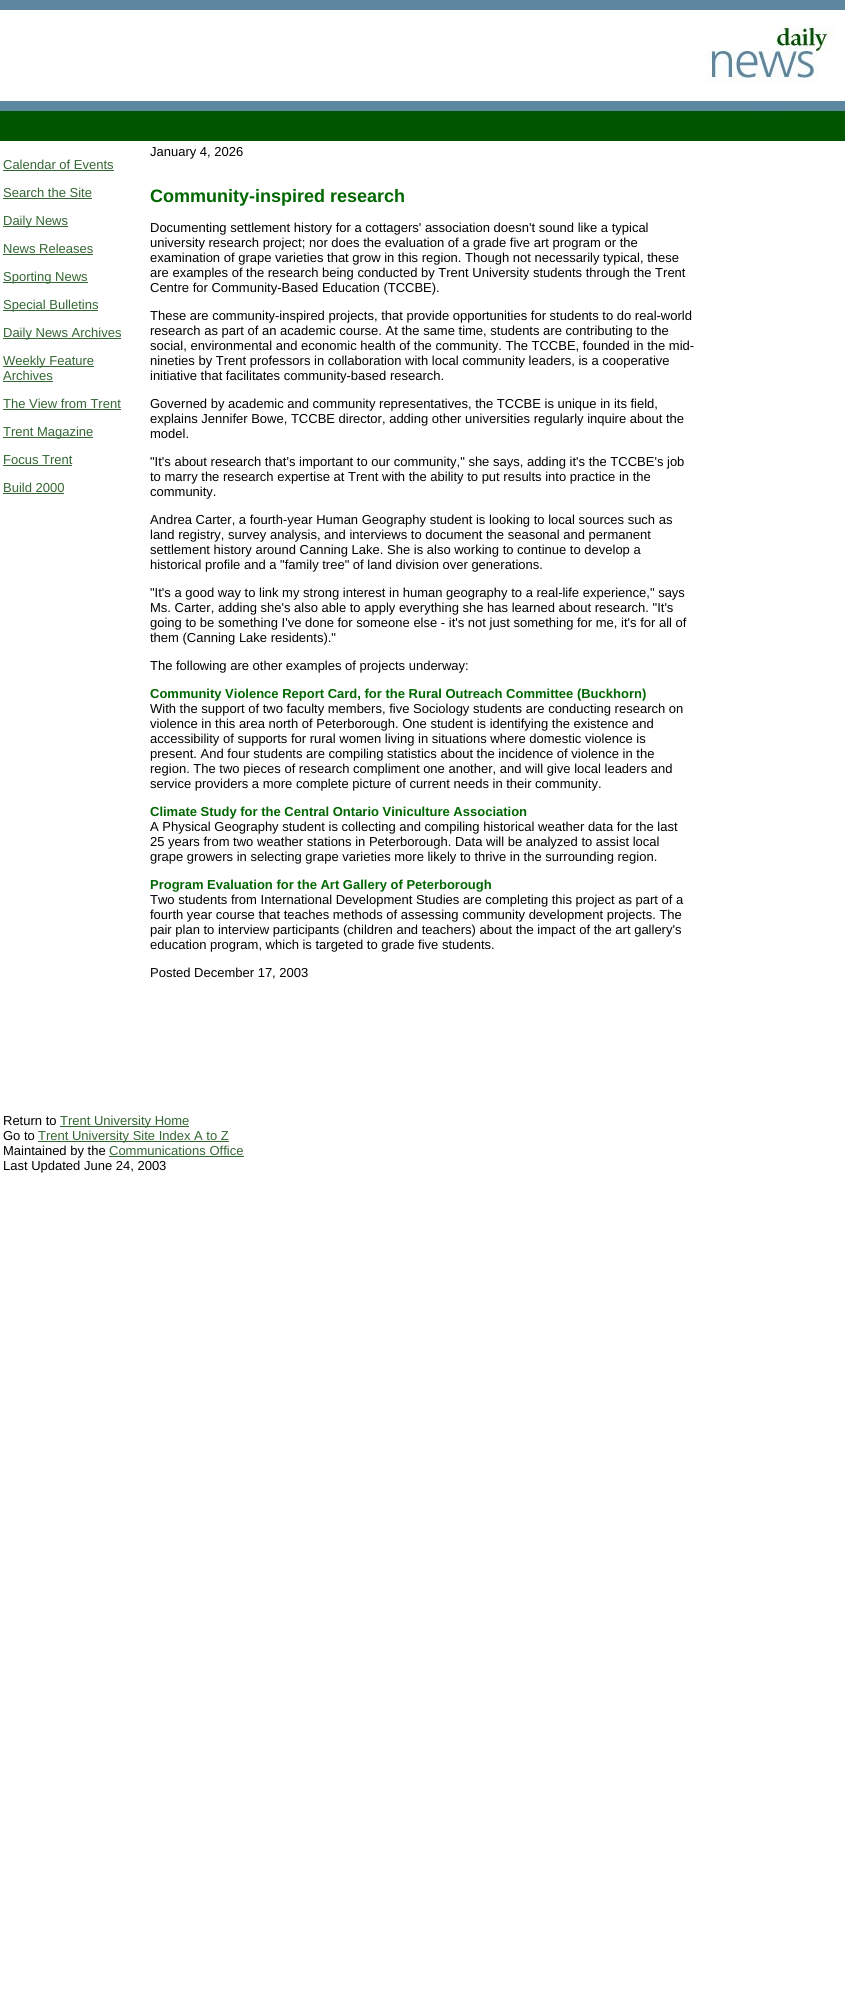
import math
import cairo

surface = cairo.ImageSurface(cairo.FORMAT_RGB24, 845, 2014)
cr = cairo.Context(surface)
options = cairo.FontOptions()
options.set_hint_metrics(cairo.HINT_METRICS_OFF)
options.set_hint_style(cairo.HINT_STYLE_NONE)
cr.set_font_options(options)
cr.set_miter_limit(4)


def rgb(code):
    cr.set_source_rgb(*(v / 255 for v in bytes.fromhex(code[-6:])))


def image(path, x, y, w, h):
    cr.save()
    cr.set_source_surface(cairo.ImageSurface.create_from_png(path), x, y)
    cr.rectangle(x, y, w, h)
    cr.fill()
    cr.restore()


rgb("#ffffff")
cr.paint()
rgb("#5e869f")
cr.rectangle(0, 0, 845, 10)
cr.fill()
image("img/1.png", 706, 19, 128, 64)
image("img/2.png", 0, 101, 845, 40)
for x, y, w, h, color in [
    (3, 170, 111, 1, "#336633"),
    (3, 198, 89, 1, "#336633"),
    (3, 226, 65, 1, "#336633"),
    (3, 254, 90, 1, "#336633"),
    (3, 282, 85, 1, "#336633"),
    (3, 310, 95, 1, "#336633"),
    (3, 338, 118, 1, "#336633"),
    (3, 366, 91, 1, "#336633"),
    (3, 381, 50, 1, "#336633"),
    (3, 409, 118, 1, "#336633"),
    (3, 437, 90, 1, "#336633"),
    (3, 465, 69, 1, "#336633"),
    (3, 493, 61, 1, "#336633"),
    (60, 1126, 129, 1, "#336633"),
    (38, 1141, 191, 1, "#336633"),
    (109, 1156, 135, 1, "#336633"),
]:
    rgb(color)
    cr.rectangle(x, y, w, h)
    cr.fill()
cr.select_font_face("Liberation Sans")
cr.set_font_size(13)
rgb("#000000")
cr.move_to(150, 156)
cr.show_text("January 4, 2026")
rgb("#336633")
for x, y, s in [
    (3, 169, "Calendar of Events"),
    (3, 197, "Search the Site"),
    (3, 225, "Daily News"),
    (3, 253, "News Releases"),
    (3, 281, "Sporting News"),
    (3, 309, "Special Bulletins"),
    (3, 337, "Daily News Archives"),
    (3, 365, "Weekly Feature"),
    (3, 380, "Archives"),
    (3, 408, "The View from Trent"),
    (3, 436, "Trent Magazine"),
    (3, 464, "Focus Trent"),
    (3, 492, "Build 2000"),
]:
    cr.move_to(x, y)
    cr.show_text(s)
cr.select_font_face("Liberation Sans", cairo.FONT_SLANT_NORMAL, cairo.FONT_WEIGHT_BOLD)
cr.set_font_size(18)
rgb("#006600")
cr.move_to(150, 202)
cr.show_text("Community-inspired research")
cr.select_font_face("Liberation Sans")
cr.set_font_size(13)
rgb("#000000")
for x, y, s in [
    (150, 232, "Documenting settlement history for a cottagers' association doesn't sound like a typical"),
    (150, 247, "university research project; nor does the evaluation of a grade five art program or the"),
    (150, 262, "examination of grape varieties that grow in this region. Though not necessarily typical, these"),
    (150, 277, "are examples of the research being conducted by Trent University students through the Trent"),
    (150, 292, "Centre for Community-Based Education (TCCBE)."),
    (150, 320, "These are community-inspired projects, that provide opportunities for students to do real-world"),
    (150, 335, "research as part of an academic course. At the same time, students are contributing to the"),
    (150, 350, "social, environmental and economic health of the community. The TCCBE, founded in the mid-"),
    (150, 365, "nineties by Trent professors in collaboration with local community leaders, is a cooperative"),
    (150, 380, "initiative that facilitates community-based research."),
    (150, 408, "Governed by academic and community representatives, the TCCBE is unique in its field,"),
    (150, 423, "explains Jennifer Bowe, TCCBE director, adding other universities regularly inquire about the"),
    (150, 438, "model."),
    (150, 466, "\"It's about research that's important to our community,\" she says, adding it's the TCCBE's job"),
    (150, 481, "to marry the research expertise at Trent with the ability to put results into practice in the"),
    (150, 496, "community."),
    (150, 524, "Andrea Carter, a fourth-year Human Geography student is looking to local sources such as"),
    (150, 539, "land registry, survey analysis, and interviews to document the seasonal and permanent"),
    (150, 554, "settlement history around Canning Lake. She is also working to continue to develop a"),
    (150, 569, "historical profile and a \"family tree\" of land division over generations."),
    (150, 597, "\"It's a good way to link my strong interest in human geography to a real-life experience,\" says"),
    (150, 612, "Ms. Carter, adding she's also able to apply everything she has learned about research. \"It's"),
    (150, 627, "going to be something I've done for someone else - it's not just something for me, it's for all of"),
    (150, 642, "them (Canning Lake residents).\""),
    (150, 670, "The following are other examples of projects underway:"),
]:
    cr.move_to(x, y)
    cr.show_text(s)
cr.select_font_face("Liberation Sans", cairo.FONT_SLANT_NORMAL, cairo.FONT_WEIGHT_BOLD)
rgb("#006600")
cr.move_to(150, 698)
cr.show_text("Community Violence Report Card, for the Rural Outreach Committee (Buckhorn)")
cr.select_font_face("Liberation Sans")
rgb("#000000")
for x, y, s in [
    (150, 713, "With the support of two faculty members, five Sociology students are conducting research on"),
    (150, 728, "violence in this area north of Peterborough. One student is identifying the existence and"),
    (150, 743, "accessibility of supports for rural women living in situations where domestic violence is"),
    (150, 758, "present. And four students are compiling statistics about the incidence of violence in the"),
    (150, 773, "region. The two pieces of research compliment one another, and will give local leaders and"),
    (150, 788, "service providers a more complete picture of current needs in their community."),
]:
    cr.move_to(x, y)
    cr.show_text(s)
cr.select_font_face("Liberation Sans", cairo.FONT_SLANT_NORMAL, cairo.FONT_WEIGHT_BOLD)
rgb("#006600")
cr.move_to(150, 816)
cr.show_text("Climate Study for the Central Ontario Viniculture Association")
cr.select_font_face("Liberation Sans")
rgb("#000000")
for x, y, s in [
    (150, 831, "A Physical Geography student is collecting and compiling historical weather data for the last"),
    (150, 846, "25 years from two weather stations in Peterborough. Data will be analyzed to assist local"),
    (150, 861, "grape growers in selecting grape varieties more likely to thrive in the surrounding region."),
]:
    cr.move_to(x, y)
    cr.show_text(s)
cr.select_font_face("Liberation Sans", cairo.FONT_SLANT_NORMAL, cairo.FONT_WEIGHT_BOLD)
rgb("#006600")
cr.move_to(150, 889)
cr.show_text("Program Evaluation for the Art Gallery of Peterborough")
cr.select_font_face("Liberation Sans")
rgb("#000000")
for x, y, s in [
    (150, 904, "Two students from International Development Studies are completing this project as part of a"),
    (150, 919, "fourth year course that teaches methods of assessing community development projects. The"),
    (150, 934, "pair plan to interview participants (children and teachers) about the impact of the art gallery's"),
    (150, 949, "education program, which is targeted to grade five students."),
    (150, 977, "Posted December 17, 2003"),
    (3, 1125, "Return to"),
]:
    cr.move_to(x, y)
    cr.show_text(s)
rgb("#336633")
cr.move_to(60, 1125)
cr.show_text("Trent University Home")
rgb("#000000")
cr.move_to(3, 1140)
cr.show_text("Go to")
rgb("#336633")
cr.move_to(38, 1140)
cr.show_text("Trent University Site Index A to Z")
rgb("#000000")
cr.move_to(3, 1155)
cr.show_text("Maintained by the")
rgb("#336633")
cr.move_to(109, 1155)
cr.show_text("Communications Office")
rgb("#000000")
cr.move_to(3, 1170)
cr.show_text("Last Updated June 24, 2003")
surface.write_to_png("page.png")
